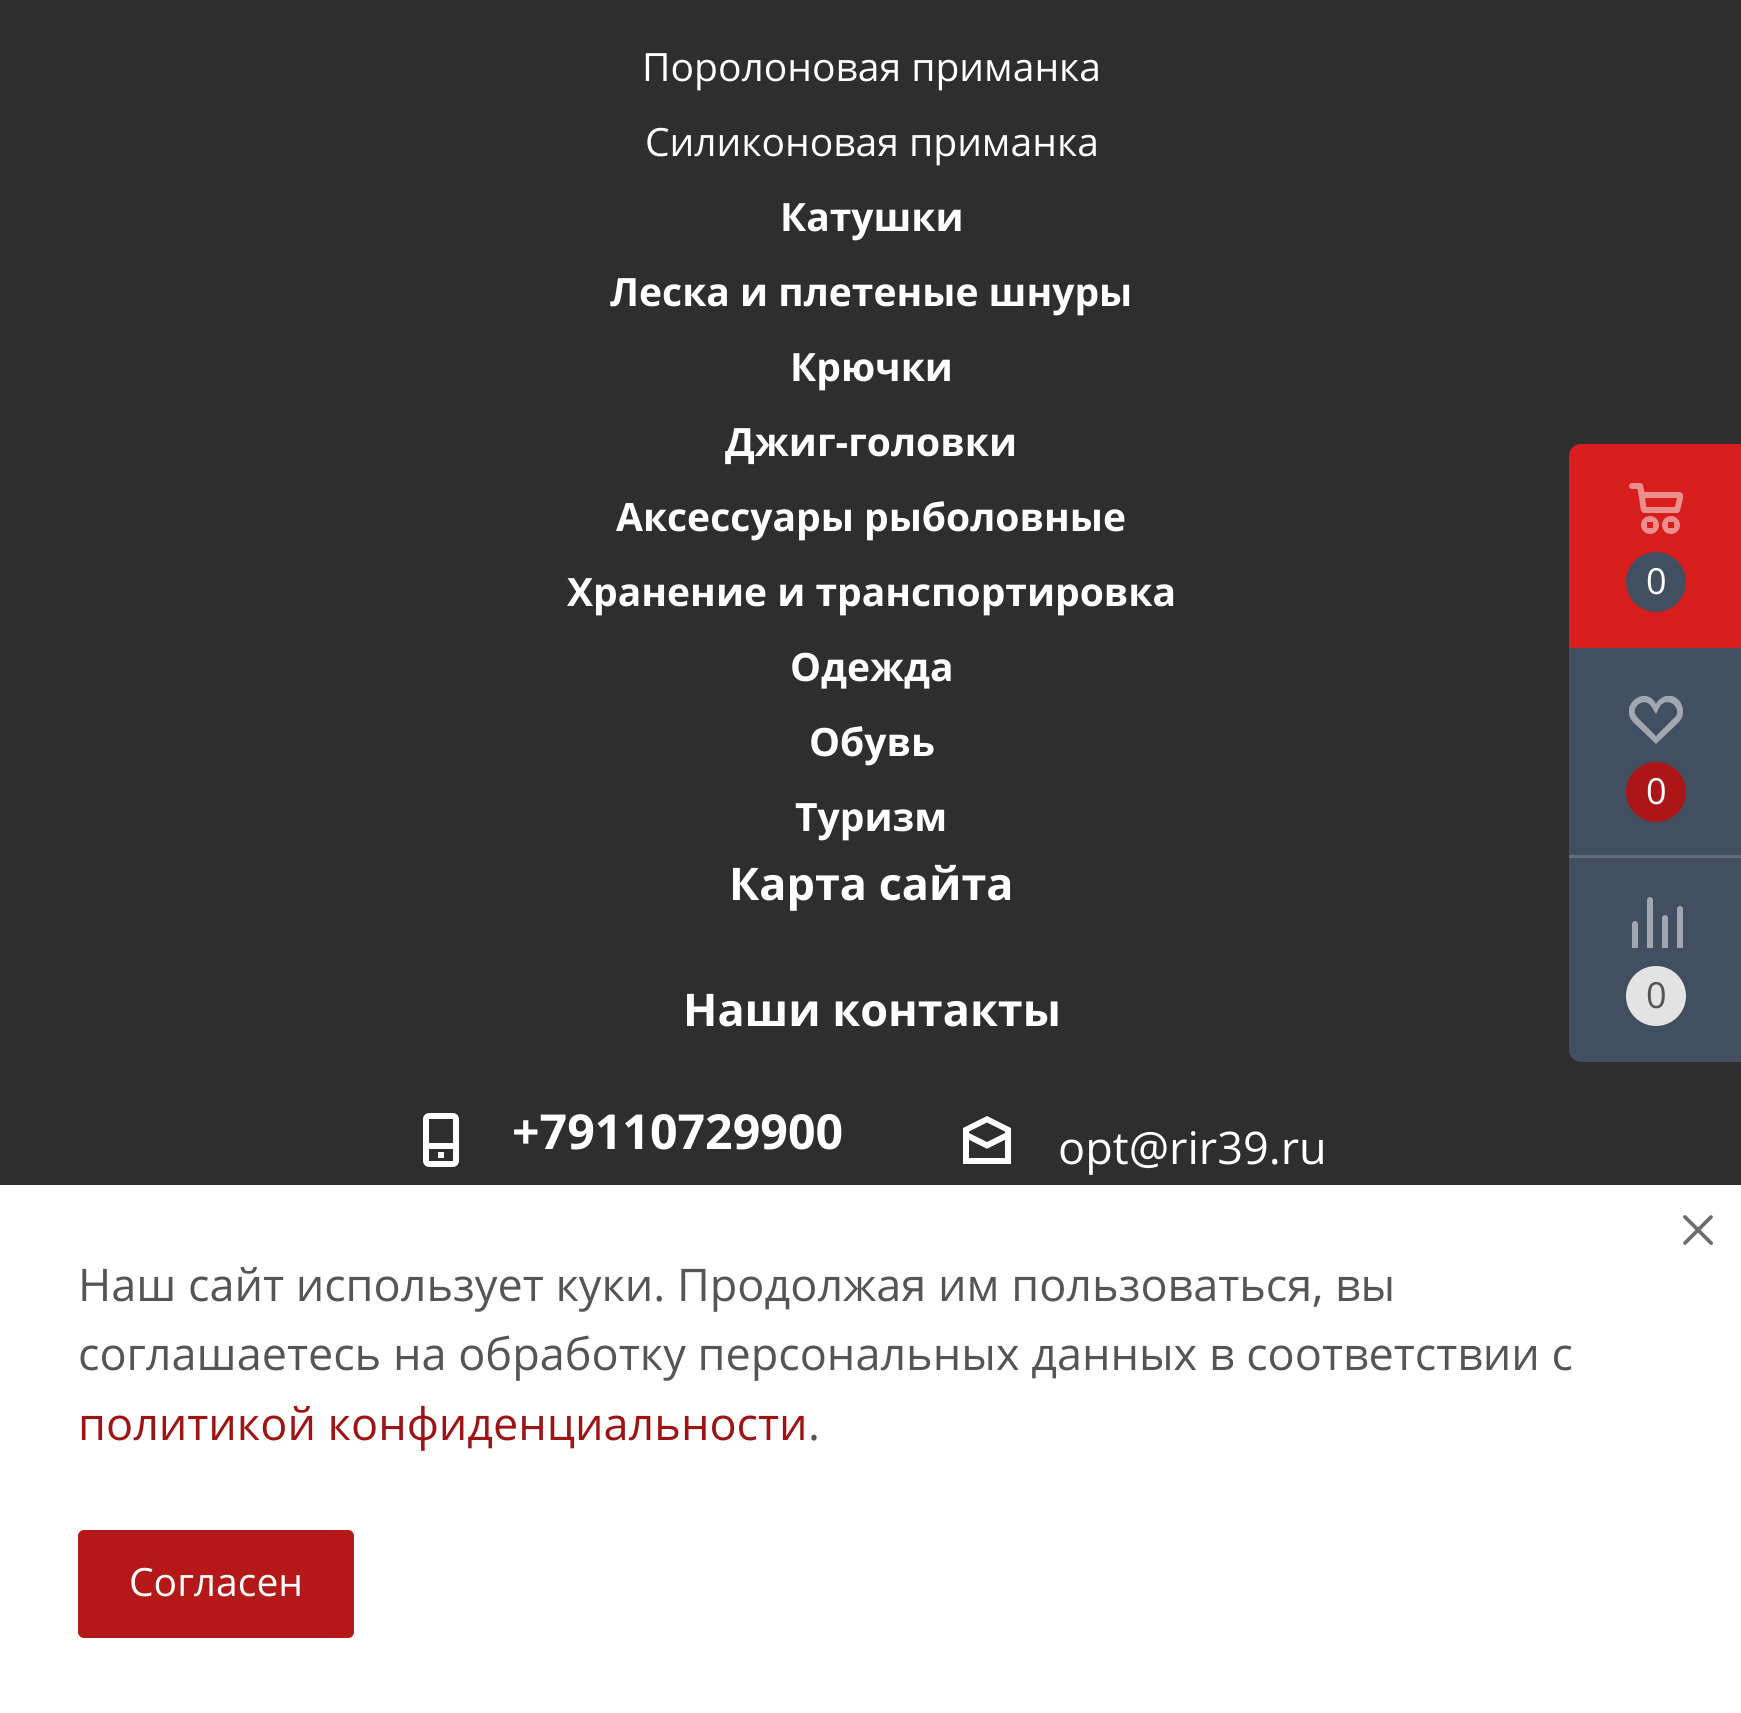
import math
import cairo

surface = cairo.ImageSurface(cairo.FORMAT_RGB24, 1741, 1713)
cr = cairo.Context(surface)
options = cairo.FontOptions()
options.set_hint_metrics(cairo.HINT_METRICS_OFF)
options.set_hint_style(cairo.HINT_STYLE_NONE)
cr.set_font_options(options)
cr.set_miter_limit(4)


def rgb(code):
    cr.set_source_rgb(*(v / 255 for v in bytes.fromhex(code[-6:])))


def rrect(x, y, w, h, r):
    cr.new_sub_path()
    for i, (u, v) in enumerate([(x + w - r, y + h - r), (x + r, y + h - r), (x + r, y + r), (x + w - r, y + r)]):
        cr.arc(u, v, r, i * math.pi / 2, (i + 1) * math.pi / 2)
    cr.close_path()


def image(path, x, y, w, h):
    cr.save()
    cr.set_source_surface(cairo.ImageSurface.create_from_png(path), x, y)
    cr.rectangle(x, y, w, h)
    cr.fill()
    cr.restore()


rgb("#2e2e2f")
cr.paint()
image("img/1.png", 423, 1113, 36, 54)
image("img/2.png", 963, 1116, 48, 48)
rgb("#424f60")
cr.new_path()
cr.move_to(1581, 444)
cr.line_to(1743, 444)
cr.line_to(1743, 1062)
cr.line_to(1581, 1062)
cr.curve_to(1574.5, 1062, 1569, 1056.5, 1569, 1050)
cr.line_to(1569, 456)
cr.curve_to(1569, 449.5, 1574.5, 444, 1581, 444)
cr.close_path()
cr.fill()
rgb("#d81d1d")
cr.new_path()
cr.move_to(1581, 444)
cr.line_to(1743, 444)
cr.line_to(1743, 648)
cr.line_to(1569, 648)
cr.line_to(1569, 456)
cr.curve_to(1569, 449.5, 1574.5, 444, 1581, 444)
cr.close_path()
cr.fill()
image("img/3.png", 1629, 483, 54, 51)
rgb("#424f60")
cr.arc(1656, 582, 30, 0, 2 * math.pi)
cr.fill()
cr.save()
cr.rectangle(1629, 696, 54, 48)
cr.clip()
rgb("#a1a7b0")
cr.set_fill_rule(cairo.FILL_RULE_EVEN_ODD)
cr.new_path()
cr.move_to(1678, 723)
cr.line_to(1656, 744)
cr.line_to(1633, 722)
cr.curve_to(1618, 705, 1646, 684, 1656, 704)
cr.curve_to(1657, 701, 1660, 699, 1663, 697)
cr.curve_to(1679, 690, 1690, 712, 1678, 723)
cr.close_path()
cr.move_to(1674, 718)
cr.line_to(1656, 736)
cr.line_to(1637, 717)
cr.curve_to(1629, 708, 1644, 696, 1651, 706)
cr.line_to(1656, 714)
cr.curve_to(1658, 711, 1659, 706, 1662, 704)
cr.curve_to(1671, 697, 1683, 711, 1674, 718)
cr.close_path()
cr.fill()
cr.restore()
rgb("#ac1616")
cr.arc(1656, 792, 30, 0, 2 * math.pi)
cr.fill()
rgb("#636f7d")
cr.rectangle(1569, 855, 172, 3)
cr.fill()
image("img/4.png", 1632, 897, 51, 51)
rgb("#e3e3e3")
cr.arc(1656, 996, 30, 0, 2 * math.pi)
cr.fill()
rgb("#ffffff")
cr.rectangle(0, 1185, 1741, 528)
cr.fill()
image("img/5.png", 1683, 1215, 30, 30)
rgb("#b41818")
rrect(79.5, 1531.5, 273, 105, 4.5)
cr.fill_preserve()
cr.set_line_width(3)
cr.stroke()
cr.select_font_face("Open Sans")
cr.set_font_size(39)
rgb("#ffffff")
cr.move_to(642, 81)
cr.show_text("Поролоновая приманка")
cr.move_to(645, 156)
cr.show_text("Силиконовая приманка")
cr.select_font_face("Open Sans", cairo.FONT_SLANT_NORMAL, cairo.FONT_WEIGHT_BOLD)
for x, y, s in [
    (780, 231, "Катушки"),
    (610, 306, "Леска и плетеные шнуры"),
    (790, 381, "Крючки"),
    (725, 456, "Джиг-головки"),
    (616, 531, "Аксессуары рыболовные"),
    (567, 606, "Хранение и транспортировка"),
    (790, 681, "Одежда"),
    (809, 756, "Обувь"),
    (795, 831, "Туризм"),
]:
    cr.move_to(x, y)
    cr.show_text(s)
cr.set_font_size(45)
cr.move_to(729, 900)
cr.show_text("Карта сайта")
cr.move_to(683, 1026)
cr.show_text("Наши контакты")
cr.set_font_size(48.25)
cr.move_to(512, 1149)
cr.show_text("+79110729900")
cr.select_font_face("Open Sans")
cr.set_font_size(45)
cr.move_to(1058, 1164)
cr.show_text("opt@rir39.ru")
cr.set_font_size(36)
cr.move_to(1646, 594)
cr.show_text("0")
cr.move_to(1646, 804)
cr.show_text("0")
rgb("#555555")
cr.move_to(1646, 1008)
cr.show_text("0")
cr.set_font_size(45)
cr.move_to(78, 1301)
cr.show_text("Наш сайт использует куки. Продолжая им пользоваться, вы")
cr.move_to(78, 1370)
cr.show_text("соглашаетесь на обработку персональных данных в соответствии с")
rgb("#9e1414")
cr.move_to(78, 1440)
cr.show_text("политикой конфиденциальности")
rgb("#555555")
cr.move_to(808, 1440)
cr.show_text(".")
cr.set_font_size(39)
rgb("#ffffff")
cr.move_to(129, 1596)
cr.show_text("Согласен")
surface.write_to_png("page.png")
